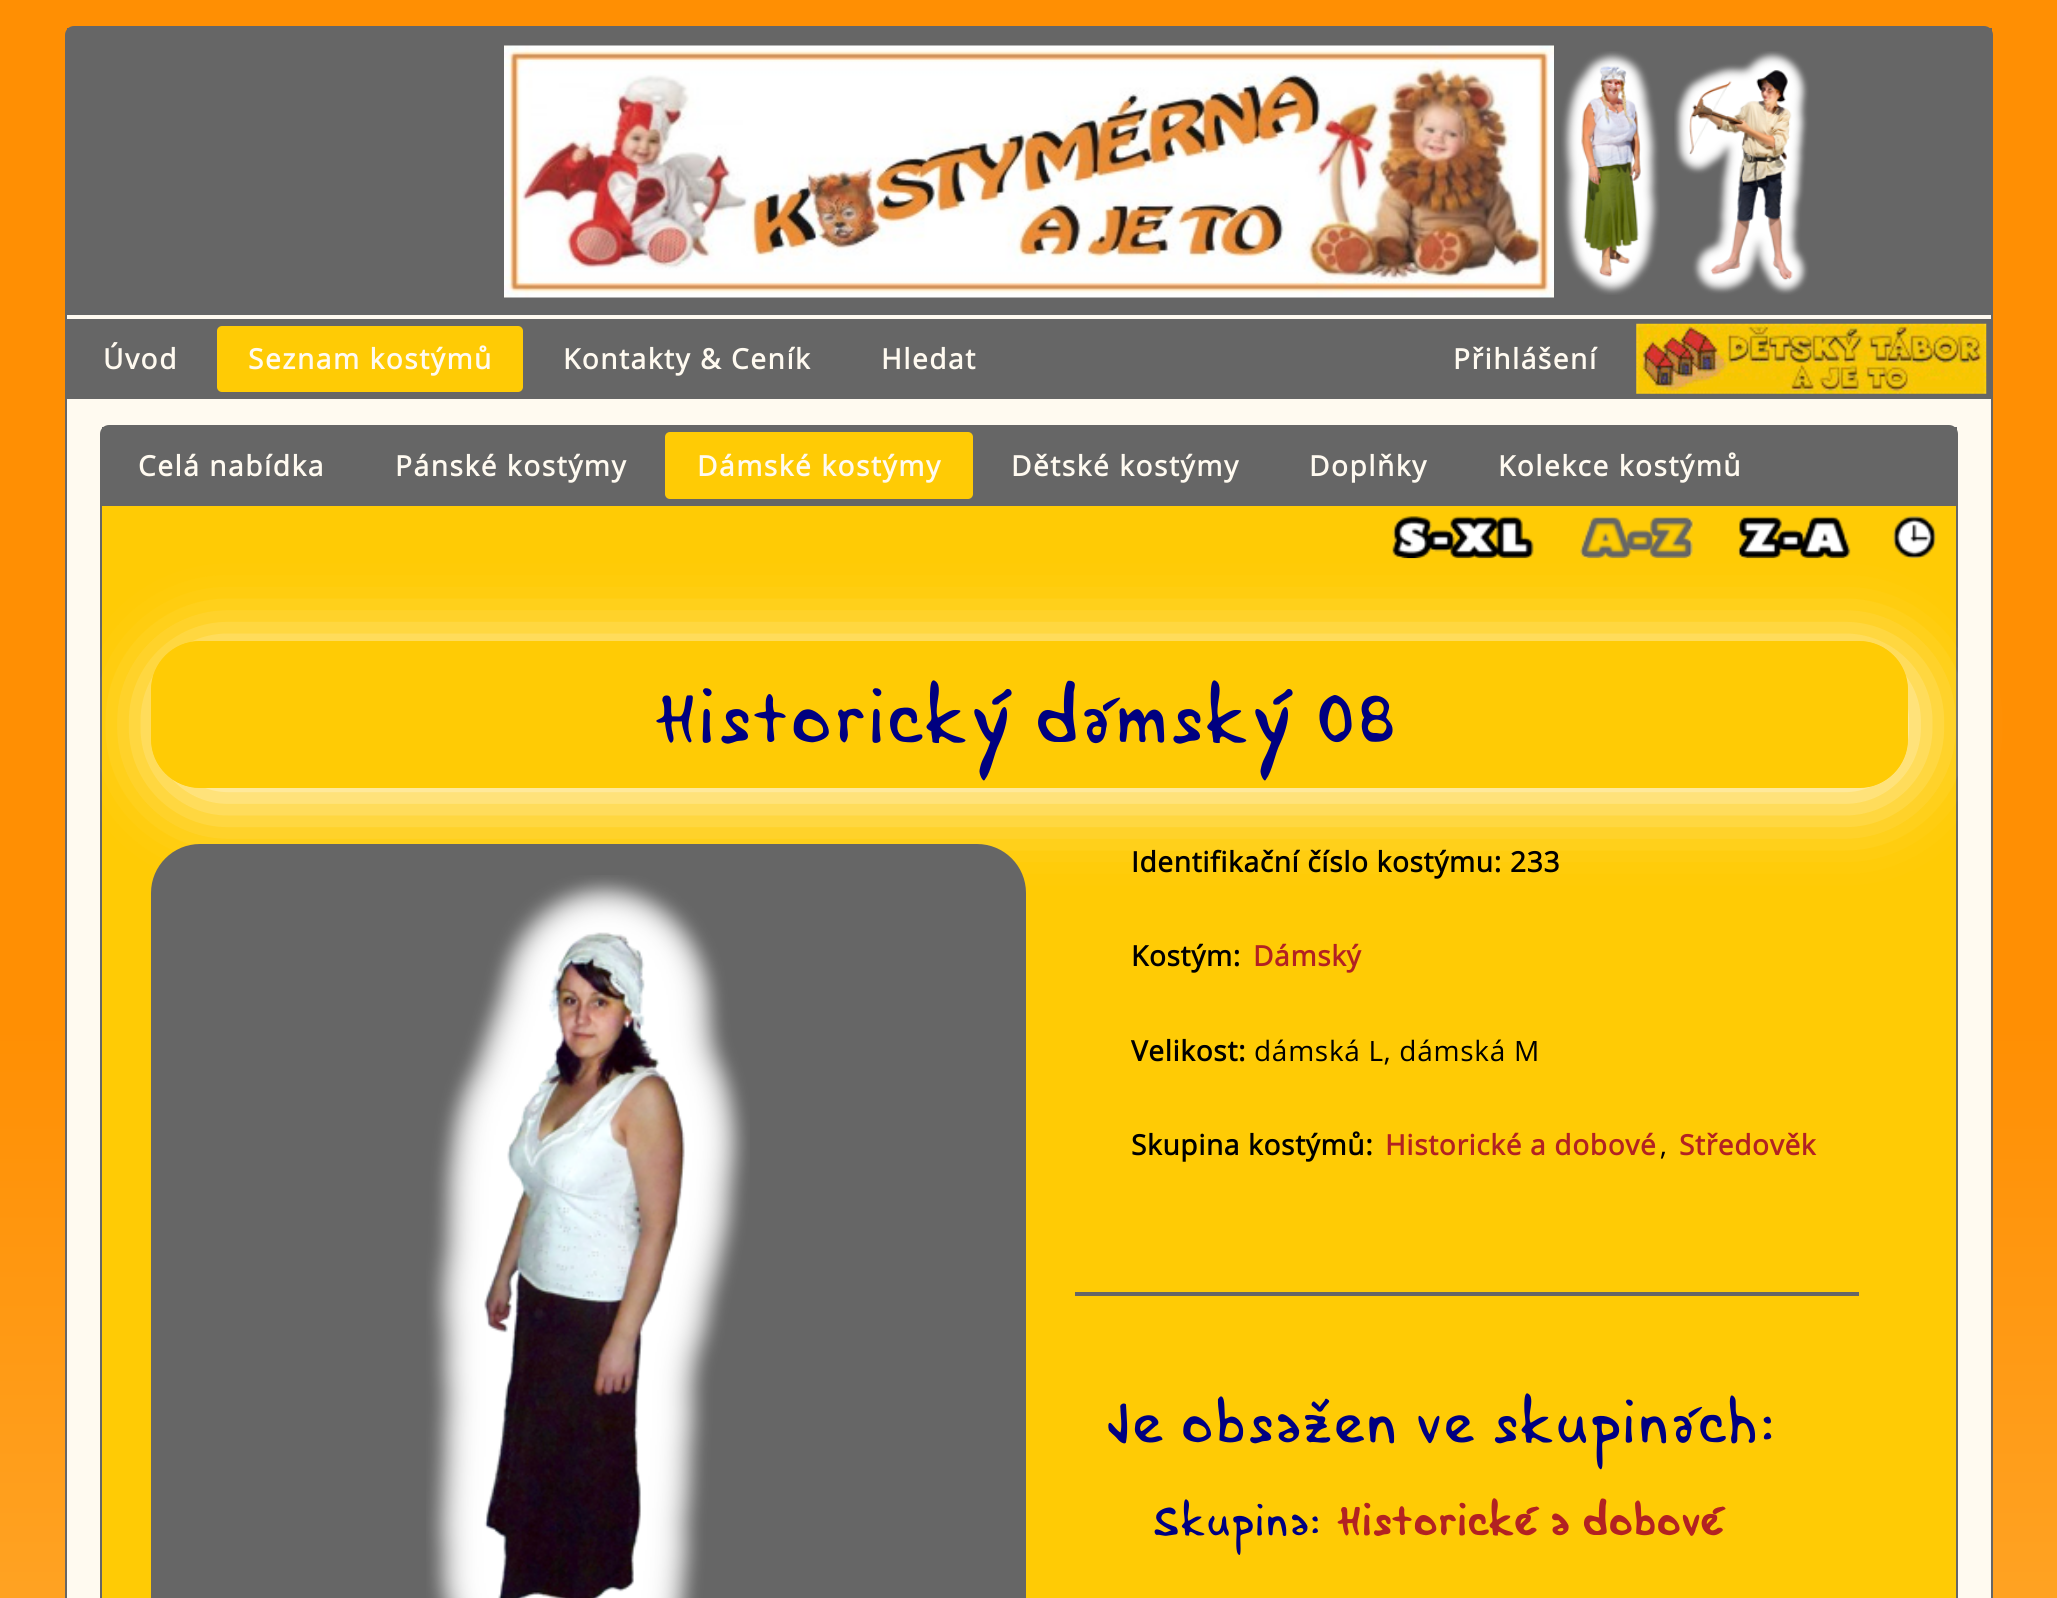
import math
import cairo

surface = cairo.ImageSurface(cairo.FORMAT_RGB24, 2057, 1598)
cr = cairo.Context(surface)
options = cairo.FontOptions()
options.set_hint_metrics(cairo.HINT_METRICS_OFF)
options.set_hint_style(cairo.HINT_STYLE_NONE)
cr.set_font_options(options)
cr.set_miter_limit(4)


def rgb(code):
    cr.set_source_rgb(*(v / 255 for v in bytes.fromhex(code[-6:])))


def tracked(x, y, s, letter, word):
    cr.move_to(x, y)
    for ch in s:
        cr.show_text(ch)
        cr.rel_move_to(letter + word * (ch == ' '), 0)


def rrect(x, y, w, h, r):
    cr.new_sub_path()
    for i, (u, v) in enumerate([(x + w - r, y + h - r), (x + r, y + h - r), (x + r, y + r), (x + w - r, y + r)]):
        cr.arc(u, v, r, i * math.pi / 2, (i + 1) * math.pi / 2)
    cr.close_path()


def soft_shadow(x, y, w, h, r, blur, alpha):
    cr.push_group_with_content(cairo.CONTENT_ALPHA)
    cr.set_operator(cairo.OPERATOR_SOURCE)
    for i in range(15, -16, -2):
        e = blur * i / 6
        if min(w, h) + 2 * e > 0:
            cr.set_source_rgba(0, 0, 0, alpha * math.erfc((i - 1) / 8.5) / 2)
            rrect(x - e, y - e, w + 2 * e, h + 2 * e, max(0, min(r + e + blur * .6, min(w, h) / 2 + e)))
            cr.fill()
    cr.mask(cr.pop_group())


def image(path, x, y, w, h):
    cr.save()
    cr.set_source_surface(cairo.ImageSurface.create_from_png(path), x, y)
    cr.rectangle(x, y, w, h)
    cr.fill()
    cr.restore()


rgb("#ffffff")
cr.paint()
gradient = cairo.LinearGradient(1029, 0, 1029, 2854)
gradient.add_color_stop_rgba(0.36, 1, 0.561, 0.012, 1)
gradient.add_color_stop_rgba(0.99, 1, 0.8, 0.4, 1)
cr.set_source(gradient)
cr.rectangle(0, 0, 2057, 1598)
cr.fill()
rgb("#fffaf0")
rrect(66, 27, 1926, 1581, 8)
cr.fill_preserve()
rgb("#666666")
cr.stroke()
cr.rectangle(67, 28, 1925, 287)
cr.fill()
image("img/1.png", 504, 45, 1050, 253)
image("img/2.png", 1561, 51, 99, 244)
image("img/3.png", 1674, 51, 135, 244)
cr.rectangle(67, 319, 1924, 80)
cr.fill()
rgb("#ffcb05")
rrect(217, 326, 306, 66, 5)
cr.fill()
image("img/4.png", 1636, 323, 351, 71)
rrect(101, 426, 1856, 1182, 8)
cr.fill_preserve()
rgb("#666666")
cr.stroke()
cr.rectangle(102, 427, 1855, 79)
cr.fill()
rgb("#ffcb05")
rrect(665, 432, 308, 67, 5)
cr.fill()
cr.save()
cr.set_fill_rule(cairo.FILL_RULE_EVEN_ODD)
cr.new_path()
cr.move_to(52, 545)
cr.line_to(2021, 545)
cr.line_to(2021, 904)
cr.line_to(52, 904)
cr.close_path()
cr.move_to(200, 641)
cr.line_to(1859, 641)
cr.curve_to(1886, 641, 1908, 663, 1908, 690)
cr.line_to(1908, 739)
cr.curve_to(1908, 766, 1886, 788, 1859, 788)
cr.line_to(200, 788)
cr.curve_to(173, 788, 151, 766, 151, 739)
cr.line_to(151, 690)
cr.curve_to(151, 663, 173, 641, 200, 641)
cr.close_path()
cr.clip()
rgb("#fffaf0")
soft_shadow(158, 651, 1757, 147, 49, 35, 1)
cr.restore()
image("img/5.png", 1391, 516, 143, 43)
image("img/6.png", 1580, 516, 114, 43)
image("img/7.png", 1737, 516, 114, 43)
image("img/8.png", 1893, 516, 43, 43)
rgb("#666666")
rrect(151, 844, 875, 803, 49)
cr.fill()
image("img/9.png", 426, 875, 324, 723)
cr.rectangle(1075, 1292, 784, 4)
cr.fill()
cr.select_font_face("Open Sans", cairo.FONT_SLANT_NORMAL, cairo.FONT_WEIGHT_BOLD)
cr.set_font_size(28)
rgb("#fffaf0")
for x, y, s in [
    (103, 369, "Úvod"),
    (248, 369, "Seznam kostýmů"),
    (563, 369, "Kontakty & Ceník"),
    (881, 369, "Hledat"),
    (1453, 369, "Přihlášení"),
    (138, 476, "Celá nabídka"),
    (395, 476, "Pánské kostýmy"),
    (697, 476, "Dámské kostýmy"),
    (1011, 476, "Dětské kostýmy"),
    (1309, 476, "Doplňky"),
    (1498, 476, "Kolekce kostýmů"),
]:
    tracked(x, y, s, 1.6, 0)
cr.select_font_face("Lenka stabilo")
cr.set_font_size(66.5)
rgb("#000080")
tracked(657, 742, "Historický dámský 08", 7, 0)
cr.select_font_face("Open Sans", cairo.FONT_SLANT_NORMAL, cairo.FONT_WEIGHT_BOLD)
cr.set_font_size(28)
rgb("#000000")
for x, y, s in [
    (1131, 872, "Identifikační číslo kostýmu:"),
    (1510, 872, "233"),
    (1131, 966, "Kostým:"),
]:
    tracked(x, y, s, 0.7, 0)
rgb("#b22222")
tracked(1253, 966, "Dámský", 0.7, 0)
rgb("#000000")
tracked(1131, 1061, "Velikost:", 0.7, 0)
cr.select_font_face("Open Sans")
tracked(1254, 1061, "dámská L, dámská M", 0.7, 0)
cr.select_font_face("Open Sans", cairo.FONT_SLANT_NORMAL, cairo.FONT_WEIGHT_BOLD)
tracked(1131, 1155, "Skupina kostýmů:", 0.7, 0)
rgb("#b22222")
tracked(1385, 1155, "Historické a dobové", 0.7, 0)
cr.select_font_face("Open Sans")
rgb("#000000")
tracked(1660, 1155, ",", 0.7, 0)
cr.select_font_face("Open Sans", cairo.FONT_SLANT_NORMAL, cairo.FONT_WEIGHT_BOLD)
rgb("#b22222")
tracked(1679, 1155, "Středověk", 0.7, 0)
cr.select_font_face("Lenka stabilo")
cr.set_font_size(52.5)
rgb("#000080")
tracked(1107, 1442, "Je obsažen ve skupinách:", 5.25, 0)
cr.set_font_size(38.5)
tracked(1154, 1535, "Skupina:", 3.5, 0)
cr.select_font_face("Lenka stabilo", cairo.FONT_SLANT_NORMAL, cairo.FONT_WEIGHT_BOLD)
rgb("#b22222")
tracked(1338, 1535, "Historické a dobové", 3.5, 0)
surface.write_to_png("page.png")
